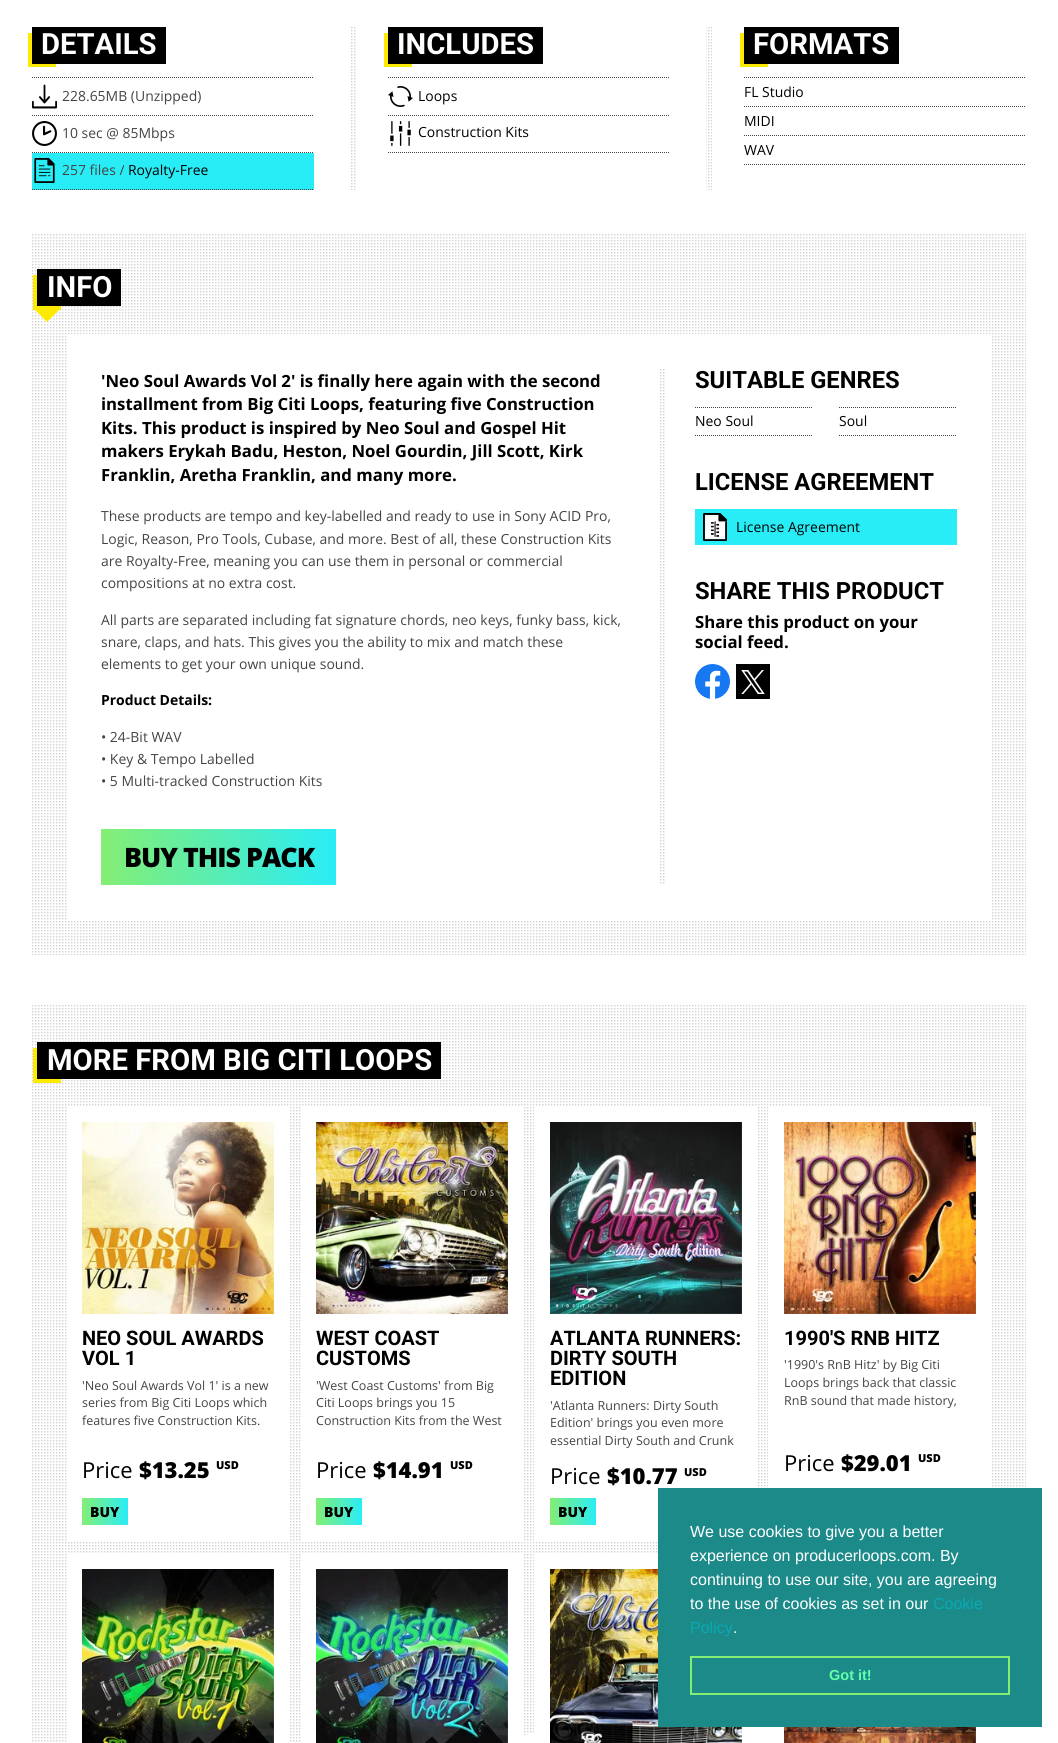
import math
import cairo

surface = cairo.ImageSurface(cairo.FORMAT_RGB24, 1058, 1743)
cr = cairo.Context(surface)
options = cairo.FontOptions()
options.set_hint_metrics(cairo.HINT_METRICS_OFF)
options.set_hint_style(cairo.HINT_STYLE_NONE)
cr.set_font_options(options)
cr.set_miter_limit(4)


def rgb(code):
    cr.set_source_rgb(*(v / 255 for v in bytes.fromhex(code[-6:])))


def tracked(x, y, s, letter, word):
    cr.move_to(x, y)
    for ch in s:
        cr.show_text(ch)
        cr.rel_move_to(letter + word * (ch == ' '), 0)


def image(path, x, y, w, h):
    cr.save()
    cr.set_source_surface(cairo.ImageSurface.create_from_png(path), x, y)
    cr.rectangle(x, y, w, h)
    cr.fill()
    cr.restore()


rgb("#ffffff")
cr.paint()
for x, y, w, h, color in [
    (28, 33, 28, 34, "#fceb01"),
    (32, 27, 134, 37, "#000000"),
    (351, 27, 5, 163, "#d2d2d2"),
]:
    rgb(color)
    cr.rectangle(x, y, w, h)
    cr.fill()
image("img/1.png", 350, 27, 6, 163)
cr.new_path()
cr.move_to(32, 77.5)
cr.line_to(314, 77.5)
rgb("#444444")
cr.set_line_width(1)
cr.set_dash([1, 1])
cr.stroke()
cr.new_path()
cr.move_to(32, 115.5)
cr.line_to(314, 115.5)
cr.stroke()
image("img/2.png", 32, 84, 25, 25)
cr.new_path()
cr.move_to(32, 152.5)
cr.line_to(314, 152.5)
cr.stroke()
image("img/3.png", 32, 121, 25, 25)
rgb("#29edf6")
cr.rectangle(32, 153, 282, 37)
cr.fill()
cr.new_path()
cr.move_to(32, 189.5)
cr.line_to(314, 189.5)
rgb("#444444")
cr.stroke()
image("img/4.png", 34, 158, 21, 25)
for x, y, w, h, color in [
    (384, 33, 28, 34, "#fceb01"),
    (388, 27, 155, 37, "#000000"),
    (706, 27, 6, 163, "#d2d2d2"),
]:
    rgb(color)
    cr.rectangle(x, y, w, h)
    cr.fill()
image("img/5.png", 706, 27, 6, 163)
cr.new_path()
cr.move_to(388, 77.5)
cr.line_to(670, 77.5)
rgb("#444444")
cr.stroke()
cr.new_path()
cr.move_to(388, 115.5)
cr.line_to(670, 115.5)
cr.stroke()
image("img/6.png", 388, 86, 25, 21)
cr.new_path()
cr.move_to(388, 152.5)
cr.line_to(670, 152.5)
cr.stroke()
image("img/7.png", 390, 121, 21, 25)
rgb("#fceb01")
cr.rectangle(740, 33, 28, 34)
cr.fill()
rgb("#000000")
cr.rectangle(744, 27, 155, 37)
cr.fill()
cr.new_path()
cr.move_to(744, 77.5)
cr.line_to(1026, 77.5)
rgb("#444444")
cr.stroke()
cr.new_path()
cr.move_to(744, 106.5)
cr.line_to(1026, 106.5)
cr.stroke()
cr.new_path()
cr.move_to(744, 135.5)
cr.line_to(1026, 135.5)
cr.stroke()
cr.new_path()
cr.move_to(744, 164.5)
cr.line_to(1026, 164.5)
cr.stroke()
rgb("#d2d2d2")
cr.rectangle(32, 234, 994, 721)
cr.fill()
image("img/8.png", 32, 234, 994, 721)
rgb("#fceb01")
cr.rectangle(33, 275, 28, 35)
cr.fill()
rgb("#000000")
cr.rectangle(37, 269, 84, 37)
cr.fill()
rgb("#fceb01")
cr.new_path()
cr.move_to(34, 309)
cr.line_to(60, 309)
cr.line_to(47, 322)
cr.close_path()
cr.fill()
rgb("#ffffff")
cr.rectangle(68, 334, 923, 586)
cr.fill()
gradient = cairo.LinearGradient(101, 857, 336, 857)
gradient.add_color_stop_rgba(0, 0.518, 0.933, 0.455, 1)
gradient.add_color_stop_rgba(1, 0.161, 0.929, 0.965, 1)
cr.set_source(gradient)
cr.rectangle(101, 829, 235, 56)
cr.fill()
rgb("#d2d2d2")
cr.rectangle(660, 369, 5, 516)
cr.fill()
image("img/9.png", 659, 369, 7, 516)
cr.new_path()
cr.move_to(695, 407.5)
cr.line_to(813, 407.5)
rgb("#444444")
cr.stroke()
cr.new_path()
cr.move_to(695, 435.5)
cr.line_to(813, 435.5)
cr.stroke()
cr.new_path()
cr.move_to(839, 407.5)
cr.line_to(957, 407.5)
cr.stroke()
cr.new_path()
cr.move_to(839, 435.5)
cr.line_to(957, 435.5)
cr.stroke()
rgb("#29edf6")
cr.rectangle(695, 509, 262, 36)
cr.fill()
image("img/10.png", 703, 513, 24, 28)
image("img/11.png", 695, 664, 35, 35)
rgb("#000000")
cr.rectangle(736, 664, 34, 35)
cr.fill()
image("img/12.png", 741, 670, 24, 24)
rgb("#d2d2d2")
cr.rectangle(32, 1005, 994, 737)
cr.fill()
image("img/13.png", 32, 1004, 994, 739)
for x, y, w, h, color in [
    (33, 1048, 28, 35, "#fceb01"),
    (37, 1042, 404, 37, "#000000"),
    (68, 1107, 221, 434, "#ffffff"),
]:
    rgb(color)
    cr.rectangle(x, y, w, h)
    cr.fill()
image("img/14.png", 82, 1122, 192, 192)
gradient = cairo.LinearGradient(82, 1512, 128, 1512)
gradient.add_color_stop_rgba(0, 0.518, 0.933, 0.455, 1)
gradient.add_color_stop_rgba(1, 0.161, 0.929, 0.965, 1)
cr.set_source(gradient)
cr.rectangle(82, 1498, 46, 27)
cr.fill()
rgb("#ffffff")
cr.rectangle(302, 1107, 221, 434)
cr.fill()
image("img/15.png", 316, 1122, 192, 192)
gradient = cairo.LinearGradient(316, 1512, 362, 1512)
gradient.add_color_stop_rgba(0, 0.518, 0.933, 0.455, 1)
gradient.add_color_stop_rgba(1, 0.161, 0.929, 0.965, 1)
cr.set_source(gradient)
cr.rectangle(316, 1498, 46, 27)
cr.fill()
rgb("#ffffff")
cr.rectangle(534, 1107, 223, 434)
cr.fill()
image("img/16.png", 550, 1122, 192, 192)
gradient = cairo.LinearGradient(550, 1512, 596, 1512)
gradient.add_color_stop_rgba(0, 0.518, 0.933, 0.455, 1)
gradient.add_color_stop_rgba(1, 0.161, 0.929, 0.965, 1)
cr.set_source(gradient)
cr.rectangle(550, 1498, 46, 27)
cr.fill()
rgb("#ffffff")
cr.rectangle(768, 1107, 223, 380)
cr.fill()
image("img/17.png", 784, 1122, 192, 192)
cr.rectangle(68, 1554, 221, 188)
cr.fill()
image("img/18.png", 82, 1569, 192, 174)
cr.save()
cr.rectangle(32, 1004, 994, 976)
cr.clip()
cr.new_path()
cr.move_to(12, 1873)
cr.line_to(1046, 1595)
cr.line_to(1046, 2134)
cr.line_to(12, 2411)
cr.close_path()
cr.fill()
cr.restore()
cr.rectangle(302, 1554, 221, 188)
cr.fill()
image("img/19.png", 316, 1569, 192, 174)
cr.rectangle(534, 1554, 223, 179)
cr.fill()
image("img/20.png", 550, 1569, 192, 174)
image("img/21.png", 784, 1727, 192, 16)
rgb("#1d8a8a")
cr.rectangle(658, 1488, 384, 239)
cr.fill()
cr.rectangle(691, 1657, 318, 37)
rgb("#84ee74")
cr.set_line_width(2)
cr.set_dash([])
cr.stroke()
cr.select_font_face("Roboto", cairo.FONT_SLANT_NORMAL, cairo.FONT_WEIGHT_BOLD)
cr.set_font_size(29.25)
rgb("#ffffff")
cr.move_to(41, 54)
cr.show_text("DETAILS")
cr.select_font_face("Open Sans")
cr.set_font_size(13.95)
rgb("#444444")
for x, y, s in [
    (62, 101, "228.65MB (Unzipped)"),
    (62, 138, "10 sec @ 85Mbps"),
    (62, 175, "257 files /"),
]:
    cr.move_to(x, y)
    cr.show_text(s)
rgb("#000000")
cr.move_to(128, 175)
cr.show_text("Royalty-Free")
cr.select_font_face("Roboto", cairo.FONT_SLANT_NORMAL, cairo.FONT_WEIGHT_BOLD)
cr.set_font_size(29.25)
rgb("#ffffff")
cr.move_to(397, 54)
cr.show_text("INCLUDES")
cr.select_font_face("Open Sans")
cr.set_font_size(13.95)
rgb("#000000")
cr.move_to(418, 101)
cr.show_text("Loops")
cr.move_to(418, 137)
cr.show_text("Construction Kits")
cr.select_font_face("Roboto", cairo.FONT_SLANT_NORMAL, cairo.FONT_WEIGHT_BOLD)
cr.set_font_size(29.25)
rgb("#ffffff")
cr.move_to(753, 54)
cr.show_text("FORMATS")
cr.select_font_face("Open Sans")
cr.set_font_size(13.95)
rgb("#000000")
for x, y, s in [
    (744, 97, "FL Studio"),
    (744, 126, "MIDI"),
    (744, 155, "WAV"),
]:
    cr.move_to(x, y)
    cr.show_text(s)
cr.select_font_face("Roboto", cairo.FONT_SLANT_NORMAL, cairo.FONT_WEIGHT_BOLD)
cr.set_font_size(29.25)
rgb("#ffffff")
cr.move_to(47, 297)
cr.show_text("INFO")
cr.select_font_face("Open Sans", cairo.FONT_SLANT_NORMAL, cairo.FONT_WEIGHT_BOLD)
cr.set_font_size(16.75)
rgb("#000000")
for x, y, s in [
    (101, 387, "'Neo Soul Awards Vol 2' is finally here again with the second"),
    (101, 410, "installment from Big Citi Loops, featuring five Construction"),
    (101, 434, "Kits. This product is inspired by Neo Soul and Gospel Hit"),
    (101, 457, "makers Erykah Badu, Heston, Noel Gourdin, Jill Scott, Kirk"),
    (101, 481, "Franklin, Aretha Franklin, and many more."),
]:
    cr.move_to(x, y)
    cr.show_text(s)
cr.select_font_face("Open Sans")
cr.set_font_size(13.95)
rgb("#444444")
for x, y, s in [
    (101, 521, "These products are tempo and key-labelled and ready to use in Sony ACID Pro,"),
    (101, 544, "Logic, Reason, Pro Tools, Cubase, and more. Best of all, these Construction Kits"),
    (101, 566, "are Royalty-Free, meaning you can use them in personal or commercial"),
    (101, 588, "compositions at no extra cost."),
    (101, 625, "All parts are separated including fat signature chords, neo keys, funky bass, kick,"),
    (101, 647, "snare, claps, and hats. This gives you the ability to mix and match these"),
    (101, 669, "elements to get your own unique sound."),
]:
    cr.move_to(x, y)
    cr.show_text(s)
cr.select_font_face("Open Sans", cairo.FONT_SLANT_NORMAL, cairo.FONT_WEIGHT_BOLD)
rgb("#000000")
cr.move_to(101, 705)
cr.show_text("Product Details:")
cr.select_font_face("Open Sans")
rgb("#444444")
for x, y, s in [
    (101, 742, "• 24-Bit WAV"),
    (101, 764, "• Key & Tempo Labelled"),
    (101, 786, "• 5 Multi-tracked Construction Kits"),
]:
    cr.move_to(x, y)
    cr.show_text(s)
cr.select_font_face("Open Sans ExtraBold")
cr.set_font_size(26.75)
rgb("#000000")
tracked(124, 867, "BUY THIS PACK", -1, 0)
cr.select_font_face("Roboto", cairo.FONT_SLANT_NORMAL, cairo.FONT_WEIGHT_BOLD)
cr.set_font_size(23.75)
cr.move_to(695, 388)
cr.show_text("SUITABLE GENRES")
cr.select_font_face("Open Sans")
cr.set_font_size(13.95)
cr.move_to(695, 426)
cr.show_text("Neo Soul")
cr.move_to(839, 426)
cr.show_text("Soul")
cr.select_font_face("Roboto", cairo.FONT_SLANT_NORMAL, cairo.FONT_WEIGHT_BOLD)
cr.set_font_size(23.75)
cr.move_to(695, 490)
cr.show_text("LICENSE AGREEMENT")
cr.select_font_face("Open Sans")
cr.set_font_size(13.95)
cr.move_to(736, 532)
cr.show_text("License Agreement")
cr.select_font_face("Roboto", cairo.FONT_SLANT_NORMAL, cairo.FONT_WEIGHT_BOLD)
cr.set_font_size(23.75)
cr.move_to(695, 599)
cr.show_text("SHARE THIS PRODUCT")
cr.select_font_face("Open Sans", cairo.FONT_SLANT_NORMAL, cairo.FONT_WEIGHT_BOLD)
cr.set_font_size(16.75)
cr.move_to(695, 628)
cr.show_text("Share this product on your")
cr.move_to(695, 648)
cr.show_text("social feed.")
cr.select_font_face("Roboto", cairo.FONT_SLANT_NORMAL, cairo.FONT_WEIGHT_BOLD)
cr.set_font_size(29.25)
rgb("#ffffff")
cr.move_to(47, 1070)
cr.show_text("MORE FROM BIG CITI LOOPS")
cr.set_font_size(20)
rgb("#000000")
cr.move_to(82, 1345)
cr.show_text("NEO SOUL AWARDS")
cr.move_to(82, 1365)
cr.show_text("VOL 1")
cr.select_font_face("Open Sans")
cr.set_font_size(12.5)
rgb("#444444")
for x, y, s in [
    (82, 1390, "'Neo Soul Awards Vol 1' is a new"),
    (82, 1407, "series from Big Citi Loops which"),
    (82, 1425, "features five Construction Kits."),
]:
    cr.move_to(x, y)
    cr.show_text(s)
cr.set_font_size(22)
rgb("#000000")
cr.move_to(82, 1478)
cr.show_text("Price")
cr.select_font_face("Open Sans ExtraBold")
cr.move_to(139, 1478)
cr.show_text("$13.25")
cr.set_font_size(11)
cr.move_to(216, 1469)
cr.show_text("USD")
cr.set_font_size(13.95)
cr.move_to(90, 1517)
cr.show_text("BUY")
cr.select_font_face("Roboto", cairo.FONT_SLANT_NORMAL, cairo.FONT_WEIGHT_BOLD)
cr.set_font_size(20)
cr.move_to(316, 1345)
cr.show_text("WEST COAST")
cr.move_to(316, 1365)
cr.show_text("CUSTOMS")
cr.select_font_face("Open Sans")
cr.set_font_size(12.5)
rgb("#444444")
for x, y, s in [
    (316, 1390, "'West Coast Customs' from Big"),
    (316, 1407, "Citi Loops brings you 15"),
    (316, 1425, "Construction Kits from the West"),
]:
    cr.move_to(x, y)
    cr.show_text(s)
cr.set_font_size(22)
rgb("#000000")
cr.move_to(316, 1478)
cr.show_text("Price")
cr.select_font_face("Open Sans ExtraBold")
cr.move_to(373, 1478)
cr.show_text("$14.91")
cr.set_font_size(11)
cr.move_to(450, 1469)
cr.show_text("USD")
cr.set_font_size(13.95)
cr.move_to(324, 1517)
cr.show_text("BUY")
cr.select_font_face("Roboto", cairo.FONT_SLANT_NORMAL, cairo.FONT_WEIGHT_BOLD)
cr.set_font_size(20)
for x, y, s in [
    (550, 1345, "ATLANTA RUNNERS:"),
    (550, 1365, "DIRTY SOUTH"),
    (550, 1385, "EDITION"),
]:
    cr.move_to(x, y)
    cr.show_text(s)
cr.select_font_face("Open Sans")
cr.set_font_size(12.5)
rgb("#444444")
for x, y, s in [
    (550, 1410, "'Atlanta Runners: Dirty South"),
    (550, 1427, "Edition' brings you even more"),
    (550, 1445, "essential Dirty South and Crunk"),
]:
    cr.move_to(x, y)
    cr.show_text(s)
cr.set_font_size(22)
rgb("#000000")
cr.move_to(550, 1484)
cr.show_text("Price")
cr.select_font_face("Open Sans ExtraBold")
cr.move_to(607, 1484)
cr.show_text("$10.77")
cr.set_font_size(11)
cr.move_to(684, 1476)
cr.show_text("USD")
cr.set_font_size(13.95)
cr.move_to(558, 1517)
cr.show_text("BUY")
cr.select_font_face("Roboto", cairo.FONT_SLANT_NORMAL, cairo.FONT_WEIGHT_BOLD)
cr.set_font_size(20)
cr.move_to(784, 1345)
cr.show_text("1990'S RNB HITZ")
cr.select_font_face("Open Sans")
cr.set_font_size(12.5)
rgb("#444444")
for x, y, s in [
    (784, 1369, "'1990's RnB Hitz' by Big Citi"),
    (784, 1387, "Loops brings back that classic"),
    (784, 1405, "RnB sound that made history,"),
]:
    cr.move_to(x, y)
    cr.show_text(s)
cr.set_font_size(22)
rgb("#000000")
cr.move_to(784, 1471)
cr.show_text("Price")
cr.select_font_face("Open Sans ExtraBold")
cr.move_to(841, 1471)
cr.show_text("$29.01")
cr.set_font_size(11)
cr.move_to(918, 1462)
cr.show_text("USD")
cr.select_font_face("Liberation Sans")
cr.set_font_size(16)
rgb("#ffffff")
for x, y, s in [
    (690, 1537, "We use cookies to give you a better"),
    (690, 1561, "experience on producerloops.com. By"),
    (690, 1585, "continuing to use our site, you are agreeing"),
    (690, 1609, "to the use of cookies as set in our"),
]:
    cr.move_to(x, y)
    cr.show_text(s)
rgb("#07aab2")
cr.move_to(933, 1609)
cr.show_text("Cookie")
cr.move_to(690, 1633)
cr.show_text("Policy")
rgb("#ffffff")
cr.move_to(733, 1633)
cr.show_text(".")
cr.select_font_face("Liberation Sans", cairo.FONT_SLANT_NORMAL, cairo.FONT_WEIGHT_BOLD)
cr.set_font_size(14.5)
rgb("#62ffaa")
cr.move_to(829, 1680)
cr.show_text("Got it!")
surface.write_to_png("page.png")
